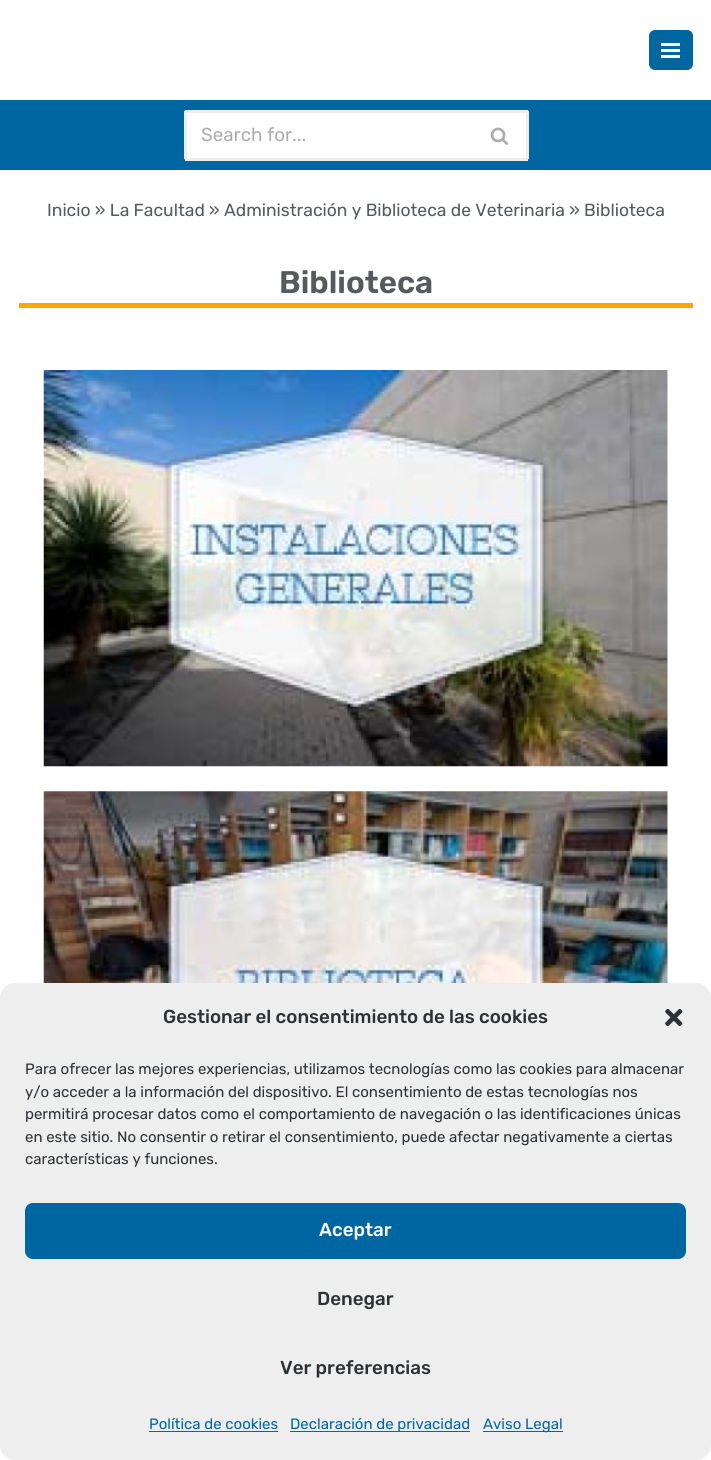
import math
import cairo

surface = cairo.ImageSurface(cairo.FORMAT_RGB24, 711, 1460)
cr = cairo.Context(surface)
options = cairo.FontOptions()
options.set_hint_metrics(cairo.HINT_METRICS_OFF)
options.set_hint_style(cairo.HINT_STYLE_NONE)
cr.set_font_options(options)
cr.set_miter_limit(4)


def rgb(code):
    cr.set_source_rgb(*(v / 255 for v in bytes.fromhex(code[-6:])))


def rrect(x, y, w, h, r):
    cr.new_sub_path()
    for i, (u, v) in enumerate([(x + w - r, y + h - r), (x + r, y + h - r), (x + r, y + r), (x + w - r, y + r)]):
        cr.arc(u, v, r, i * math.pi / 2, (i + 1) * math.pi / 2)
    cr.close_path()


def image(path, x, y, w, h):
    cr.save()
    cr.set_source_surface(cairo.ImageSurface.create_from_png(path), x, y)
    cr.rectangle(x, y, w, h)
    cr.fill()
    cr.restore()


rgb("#ffffff")
cr.paint()
rgb("#0066a1")
rrect(649, 30, 44, 40, 6)
cr.fill()
for x, y, w, h, color in [
    (661, 43, 19, 3, "#ffffff"),
    (661, 49, 19, 3, "#ffffff"),
    (661, 55, 19, 3, "#ffffff"),
    (0, 100, 711, 70, "#0066a1"),
]:
    rgb(color)
    cr.rectangle(x, y, w, h)
    cr.fill()
rgb("#ffffff")
cr.new_path()
cr.move_to(186.5, 110)
cr.line_to(473, 110)
cr.line_to(473, 160)
cr.line_to(186.5, 160)
cr.curve_to(185, 160, 184, 159, 184, 157.5)
cr.line_to(184, 112.5)
cr.curve_to(184, 111, 185, 110, 186.5, 110)
cr.close_path()
cr.fill()
for x, y, w, h, color in [
    (185, 110, 288, 3, "#ededed"),
    (185, 158, 288, 3, "#ededed"),
    (184, 111, 3, 48, "#ededed"),
]:
    rgb(color)
    cr.rectangle(x, y, w, h)
    cr.fill()
rgb("#ffffff")
cr.new_path()
cr.move_to(473, 110)
cr.line_to(526.5, 110)
cr.curve_to(528, 110, 529, 111, 529, 112.5)
cr.line_to(529, 157.5)
cr.curve_to(529, 159, 528, 160, 526.5, 160)
cr.line_to(473, 160)
cr.close_path()
cr.fill()
for x, y, w, h, color in [
    (473, 110, 55, 3, "#ededed"),
    (526, 111, 3, 48, "#ededed"),
    (473, 158, 55, 3, "#ededed"),
]:
    rgb(color)
    cr.rectangle(x, y, w, h)
    cr.fill()
image("img/1.png", 490, 127, 18, 18)
rgb("#ffa500")
cr.rectangle(19, 303, 674, 5)
cr.fill()
image("img/2.png", 43, 370, 625, 397)
image("img/3.png", 43, 791, 625, 192)
rgb("#eeeeee")
rrect(0, 983, 711, 477, 15)
cr.fill()
image("img/4.png", 665, 1008, 18, 19)
rgb("#0066a1")
rrect(25.5, 1203.5, 660, 55, 7.5)
cr.fill_preserve()
cr.set_line_width(1)
cr.stroke()
for x, y, w, h, color in [
    (149, 1431, 129, 1, "#0066a1"),
    (290, 1431, 180, 1, "#0066a1"),
    (483, 1431, 80, 1, "#0066a1"),
]:
    rgb(color)
    cr.rectangle(x, y, w, h)
    cr.fill()
cr.select_font_face("Rubik")
cr.set_font_size(18.75)
rgb("#abadae")
cr.move_to(201, 141)
cr.show_text("Search for...")
cr.set_font_size(17.5)
rgb("#565a5c")
cr.move_to(47, 216)
cr.show_text("Inicio » La Facultad » Administración y Biblioteca de Veterinaria » Biblioteca")
cr.select_font_face("Rubik SemiBold")
cr.set_font_size(31.25)
cr.move_to(279, 293)
cr.show_text("Biblioteca")
cr.select_font_face("Rubik Medium")
cr.set_font_size(18.75)
rgb("#2d3133")
cr.move_to(163, 1023)
cr.show_text("Gestionar el consentimiento de las cookies")
cr.select_font_face("Rubik")
cr.set_font_size(15)
for x, y, s in [
    (25, 1074, "Para ofrecer las mejores experiencias, utilizamos tecnologías como las cookies para almacenar"),
    (25, 1097, "y/o acceder a la información del dispositivo. El consentimiento de estas tecnologías nos"),
    (25, 1119, "permitirá procesar datos como el comportamiento de navegación o las identificaciones únicas"),
    (25, 1142, "en este sitio. No consentir o retirar el consentimiento, puede afectar negativamente a ciertas"),
    (25, 1164, "características y funciones."),
]:
    cr.move_to(x, y)
    cr.show_text(s)
cr.select_font_face("Rubik Medium")
cr.set_font_size(18.75)
rgb("#ffffff")
cr.move_to(319, 1236)
cr.show_text("Aceptar")
rgb("#2d3133")
cr.move_to(317, 1305)
cr.show_text("Denegar")
cr.move_to(280, 1374)
cr.show_text("Ver preferencias")
cr.select_font_face("Rubik")
cr.set_font_size(15)
rgb("#0066a1")
for x, y, s in [
    (149, 1429, "Política de cookies"),
    (290, 1429, "Declaración de privacidad"),
    (483, 1429, "Aviso Legal"),
]:
    cr.move_to(x, y)
    cr.show_text(s)
surface.write_to_png("page.png")
